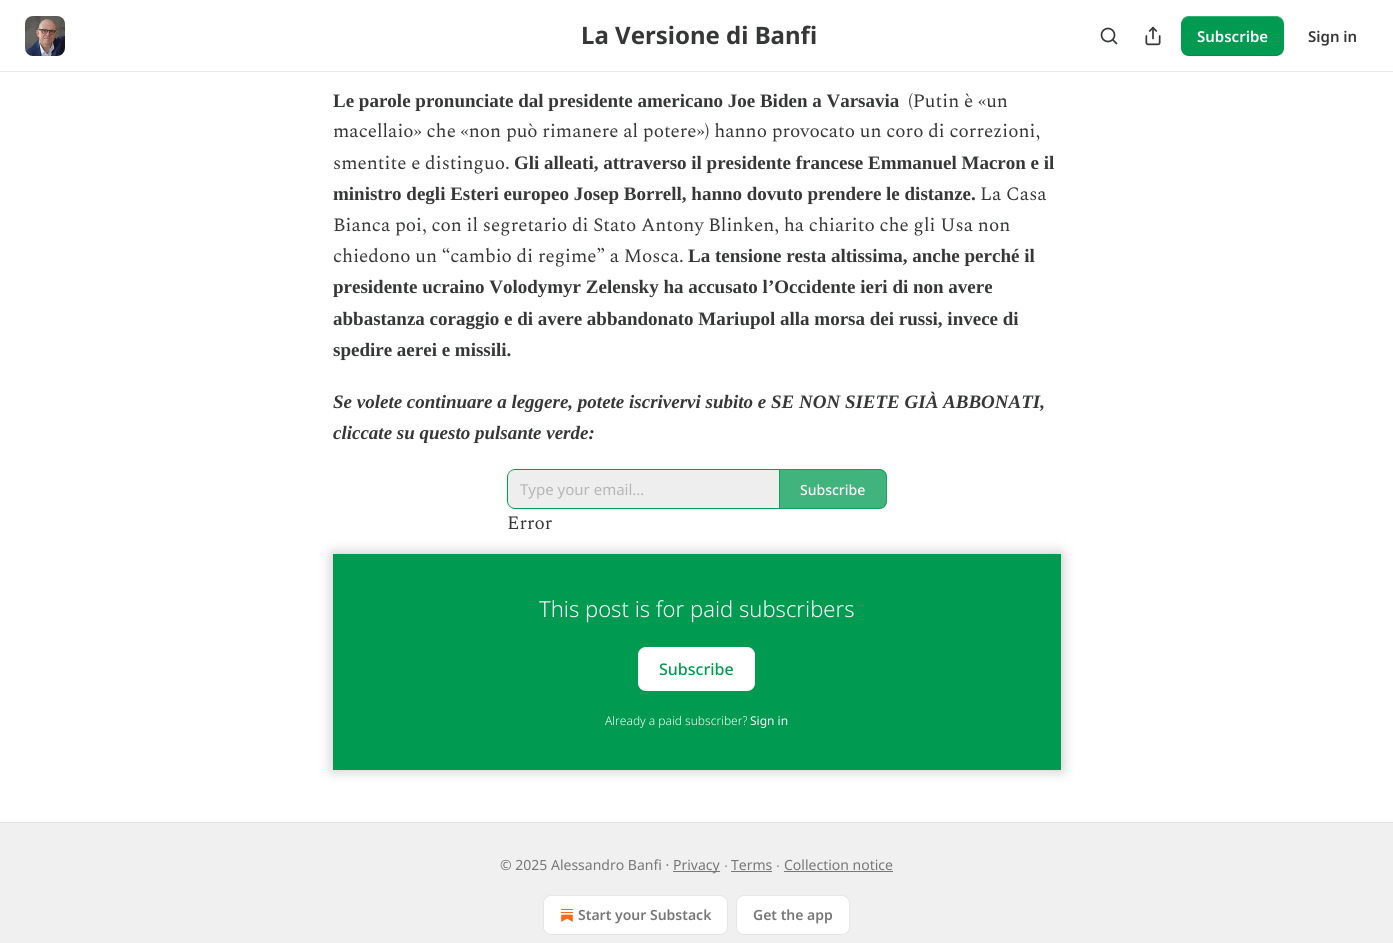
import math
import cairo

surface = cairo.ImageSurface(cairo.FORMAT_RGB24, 1393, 943)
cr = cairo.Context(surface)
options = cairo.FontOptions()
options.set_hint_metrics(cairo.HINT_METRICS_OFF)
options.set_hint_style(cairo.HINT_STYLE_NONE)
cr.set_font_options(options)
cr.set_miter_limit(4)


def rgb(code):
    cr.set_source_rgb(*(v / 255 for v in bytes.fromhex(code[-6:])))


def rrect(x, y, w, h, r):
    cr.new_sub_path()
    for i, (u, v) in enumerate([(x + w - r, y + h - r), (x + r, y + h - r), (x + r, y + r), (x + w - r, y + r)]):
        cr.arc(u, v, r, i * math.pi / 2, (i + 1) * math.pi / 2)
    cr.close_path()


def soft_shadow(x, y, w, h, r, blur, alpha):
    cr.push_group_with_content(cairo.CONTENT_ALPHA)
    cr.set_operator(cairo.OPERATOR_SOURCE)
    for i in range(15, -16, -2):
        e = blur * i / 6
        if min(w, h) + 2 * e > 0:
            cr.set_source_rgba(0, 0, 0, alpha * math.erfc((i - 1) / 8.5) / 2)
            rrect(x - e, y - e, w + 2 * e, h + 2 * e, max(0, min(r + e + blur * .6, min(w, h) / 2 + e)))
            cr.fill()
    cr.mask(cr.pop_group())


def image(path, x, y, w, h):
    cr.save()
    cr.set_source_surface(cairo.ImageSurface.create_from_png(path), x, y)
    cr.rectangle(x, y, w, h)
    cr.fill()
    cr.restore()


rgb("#ffffff")
cr.paint()
rgb("#e6e6e6")
cr.rectangle(0, 71, 1393, 1)
cr.fill()
image("img/1.png", 25, 16, 40, 40)
cr.arc(1108, 35, 6.5, 0, 2 * math.pi)
rgb("#363737")
cr.set_line_width(1.7)
cr.stroke()
cr.new_path()
cr.move_to(1116.5, 43.5)
cr.line_to(1113, 40)
cr.set_line_cap(cairo.LINE_CAP_ROUND)
cr.set_line_join(cairo.LINE_JOIN_ROUND)
cr.stroke()
image("img/2.png", 1145, 26, 16, 20)
rgb("#009b50")
rrect(1181, 16, 103, 40, 8)
cr.fill()
cr.set_source_rgba(0, 0, 0, 0.1)
cr.new_path()
cr.move_to(1181, 47)
cr.curve_to(1181, 59, 1195, 56, 1204, 56)
cr.line_to(1262, 56)
cr.curve_to(1270, 56, 1284, 59, 1284, 47)
cr.curve_to(1284, 51, 1280, 55, 1276, 55)
cr.line_to(1189, 55)
cr.curve_to(1185, 55, 1181, 51, 1181, 47)
cr.close_path()
cr.fill()
cr.set_source_rgba(1, 1, 1, 0.2)
cr.new_path()
cr.move_to(1189, 17)
cr.line_to(1276, 17)
cr.curve_to(1280, 17, 1284, 21, 1284, 25)
cr.curve_to(1284, 13, 1270, 16, 1262, 16)
cr.line_to(1204, 16)
cr.curve_to(1195, 16, 1181, 13, 1181, 25)
cr.curve_to(1181, 21, 1185, 17, 1189, 17)
cr.close_path()
cr.fill()
rgb("#000000")
soft_shadow(507, 470, 272, 40, 8, 1, 0.05)
rgb("#eeeeee")
cr.new_path()
cr.move_to(515, 470)
cr.line_to(779, 470)
cr.line_to(779, 508)
cr.line_to(515, 508)
cr.curve_to(511, 508, 508, 505, 508, 501)
cr.line_to(508, 477)
cr.curve_to(508, 473, 511, 470, 515, 470)
cr.close_path()
cr.fill()
rgb("#009b50")
cr.set_fill_rule(cairo.FILL_RULE_EVEN_ODD)
cr.new_path()
cr.move_to(515, 469)
cr.line_to(779, 469)
cr.line_to(779, 509)
cr.line_to(515, 509)
cr.curve_to(511, 509, 507, 505, 507, 501)
cr.line_to(507, 477)
cr.curve_to(507, 473, 511, 469, 515, 469)
cr.close_path()
cr.move_to(515, 470)
cr.line_to(779, 470)
cr.line_to(779, 508)
cr.line_to(515, 508)
cr.curve_to(511, 508, 508, 505, 508, 501)
cr.line_to(508, 477)
cr.curve_to(508, 473, 511, 470, 515, 470)
cr.close_path()
cr.fill()
cr.set_source_rgba(0, 0.608, 0.314, 0.75)
cr.new_path()
cr.move_to(779, 469)
cr.line_to(879, 469)
cr.curve_to(883.5, 469, 887, 472.5, 887, 477)
cr.line_to(887, 501)
cr.curve_to(887, 505.5, 883.5, 509, 879, 509)
cr.line_to(779, 509)
cr.close_path()
cr.fill()
cr.new_path()
cr.move_to(779.5, 469.5)
cr.line_to(879, 469.5)
cr.curve_to(883, 469.5, 886.5, 473, 886.5, 477)
cr.line_to(886.5, 501)
cr.curve_to(886.5, 505, 883, 508.5, 879, 508.5)
cr.line_to(779.5, 508.5)
cr.close_path()
cr.set_line_width(1)
cr.set_line_cap(cairo.LINE_CAP_BUTT)
cr.set_line_join(cairo.LINE_JOIN_MITER)
cr.stroke()
rgb("#009b50")
cr.rectangle(333, 554, 728, 216)
cr.fill()
rgb("#ffffff")
rrect(638.5, 647.5, 116, 43, 7.5)
cr.fill_preserve()
cr.stroke()
cr.save()
cr.new_path()
cr.move_to(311, 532)
cr.line_to(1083, 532)
cr.line_to(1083, 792)
cr.line_to(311, 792)
cr.close_path()
cr.move_to(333, 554)
cr.line_to(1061, 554)
cr.line_to(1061, 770)
cr.line_to(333, 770)
cr.close_path()
cr.clip()
rgb("#000000")
soft_shadow(333, 554, 728, 216, 0, 7, 0.25)
cr.restore()
for x, y, w, h, color in [
    (0, 823, 1393, 120, "#f0f0f0"),
    (0, 822, 1393, 1, "#e6e6e6"),
    (673, 871, 47, 1, "#777777"),
    (731, 871, 41, 1, "#777777"),
    (784, 871, 109, 1, "#777777"),
]:
    rgb(color)
    cr.rectangle(x, y, w, h)
    cr.fill()
rgb("#ffffff")
rrect(543.5, 895.5, 184, 39, 7.5)
cr.fill_preserve()
rgb("#e6e6e6")
cr.stroke()
image("img/3.png", 561, 909, 12, 13)
rgb("#ffffff")
rrect(736.5, 895.5, 113, 39, 7.5)
cr.fill_preserve()
rgb("#e6e6e6")
cr.stroke()
cr.select_font_face("Noto Sans", cairo.FONT_SLANT_NORMAL, cairo.FONT_WEIGHT_BOLD)
cr.set_font_size(24)
rgb("#363737")
cr.move_to(581, 44)
cr.show_text("La Versione di Banfi")
cr.select_font_face("Noto Sans SemiBold")
cr.set_font_size(15)
rgb("#ffffff")
cr.move_to(1197, 42)
cr.show_text("Subscribe")
rgb("#363737")
cr.move_to(1308, 42)
cr.show_text("Sign in")
cr.select_font_face("Liberation Serif", cairo.FONT_SLANT_NORMAL, cairo.FONT_WEIGHT_BOLD)
cr.set_font_size(19)
cr.move_to(333, 107)
cr.show_text("Le parole pronunciate dal presidente americano Joe Biden a Varsavia")
cr.select_font_face("Spectral")
for x, y, s in [
    (908, 107, "(Putin è «un"),
    (333, 137, "macellaio» che «non può rimanere al potere») hanno provocato un coro di correzioni,"),
    (333, 169, "smentite e distinguo."),
]:
    cr.move_to(x, y)
    cr.show_text(s)
cr.select_font_face("Liberation Serif", cairo.FONT_SLANT_NORMAL, cairo.FONT_WEIGHT_BOLD)
cr.move_to(514, 169)
cr.show_text("Gli alleati, attraverso il presidente francese Emmanuel Macron e il")
cr.move_to(333, 200)
cr.show_text("ministro degli Esteri europeo Josep Borrell, hanno dovuto prendere le distanze.")
cr.select_font_face("Spectral")
for x, y, s in [
    (980, 200, "La Casa"),
    (333, 231, "Bianca poi, con il segretario di Stato Antony Blinken, ha chiarito che gli Usa non"),
    (333, 262, "chiedono un “cambio di regime” a Mosca."),
]:
    cr.move_to(x, y)
    cr.show_text(s)
cr.select_font_face("Liberation Serif", cairo.FONT_SLANT_NORMAL, cairo.FONT_WEIGHT_BOLD)
for x, y, s in [
    (688, 262, "La tensione resta altissima, anche perché il"),
    (333, 293, "presidente ucraino Volodymyr Zelensky ha accusato l’Occidente ieri di non avere"),
    (333, 325, "abbastanza coraggio e di avere abbandonato Mariupol alla morsa dei russi, invece di"),
    (333, 356, "spedire aerei e missili."),
]:
    cr.move_to(x, y)
    cr.show_text(s)
cr.select_font_face("Liberation Serif", cairo.FONT_SLANT_ITALIC, cairo.FONT_WEIGHT_BOLD)
cr.move_to(333, 408)
cr.show_text("Se volete continuare a leggere, potete iscrivervi subito e SE NON SIETE GIÀ ABBONATI,")
cr.move_to(333, 439)
cr.show_text("cliccate su questo pulsante verde:")
cr.select_font_face("Noto Sans")
cr.set_font_size(15)
rgb("#b6b6b6")
cr.move_to(520, 495)
cr.show_text("Type your email...")
cr.select_font_face("Noto Sans Medium")
cr.set_font_size(14)
rgb("#ffffff")
cr.move_to(800, 495)
cr.show_text("Subscribe")
cr.select_font_face("Spectral")
cr.set_font_size(19)
rgb("#363737")
cr.move_to(507, 529)
cr.show_text("Error")
cr.select_font_face("Noto Sans Light")
cr.set_font_size(22)
rgb("#ffffff")
cr.move_to(539, 617)
cr.show_text("This post is for paid subscribers")
cr.select_font_face("Noto Sans Medium")
cr.set_font_size(16)
rgb("#009b50")
cr.move_to(659, 675)
cr.show_text("Subscribe")
cr.select_font_face("Noto Sans Light")
cr.set_font_size(12)
rgb("#ffffff")
cr.move_to(605, 725)
cr.show_text("Already a paid subscriber?")
cr.select_font_face("Noto Sans")
cr.move_to(750, 725)
cr.show_text("Sign in")
cr.set_font_size(14)
rgb("#777777")
cr.move_to(500, 870)
cr.show_text("© 2025 Alessandro Banfi ·")
cr.move_to(673, 870)
cr.show_text("Privacy")
cr.select_font_face("Liberation Sans")
cr.move_to(724, 870)
cr.show_text("∙")
cr.select_font_face("Noto Sans")
cr.move_to(731, 870)
cr.show_text("Terms")
cr.select_font_face("Liberation Sans")
cr.move_to(776, 870)
cr.show_text("∙")
cr.select_font_face("Noto Sans")
cr.move_to(784, 870)
cr.show_text("Collection notice")
cr.select_font_face("Noto Sans SemiBold")
cr.move_to(578, 920)
cr.show_text("Start your Substack")
cr.move_to(753, 920)
cr.show_text("Get the app")
surface.write_to_png("page.png")
